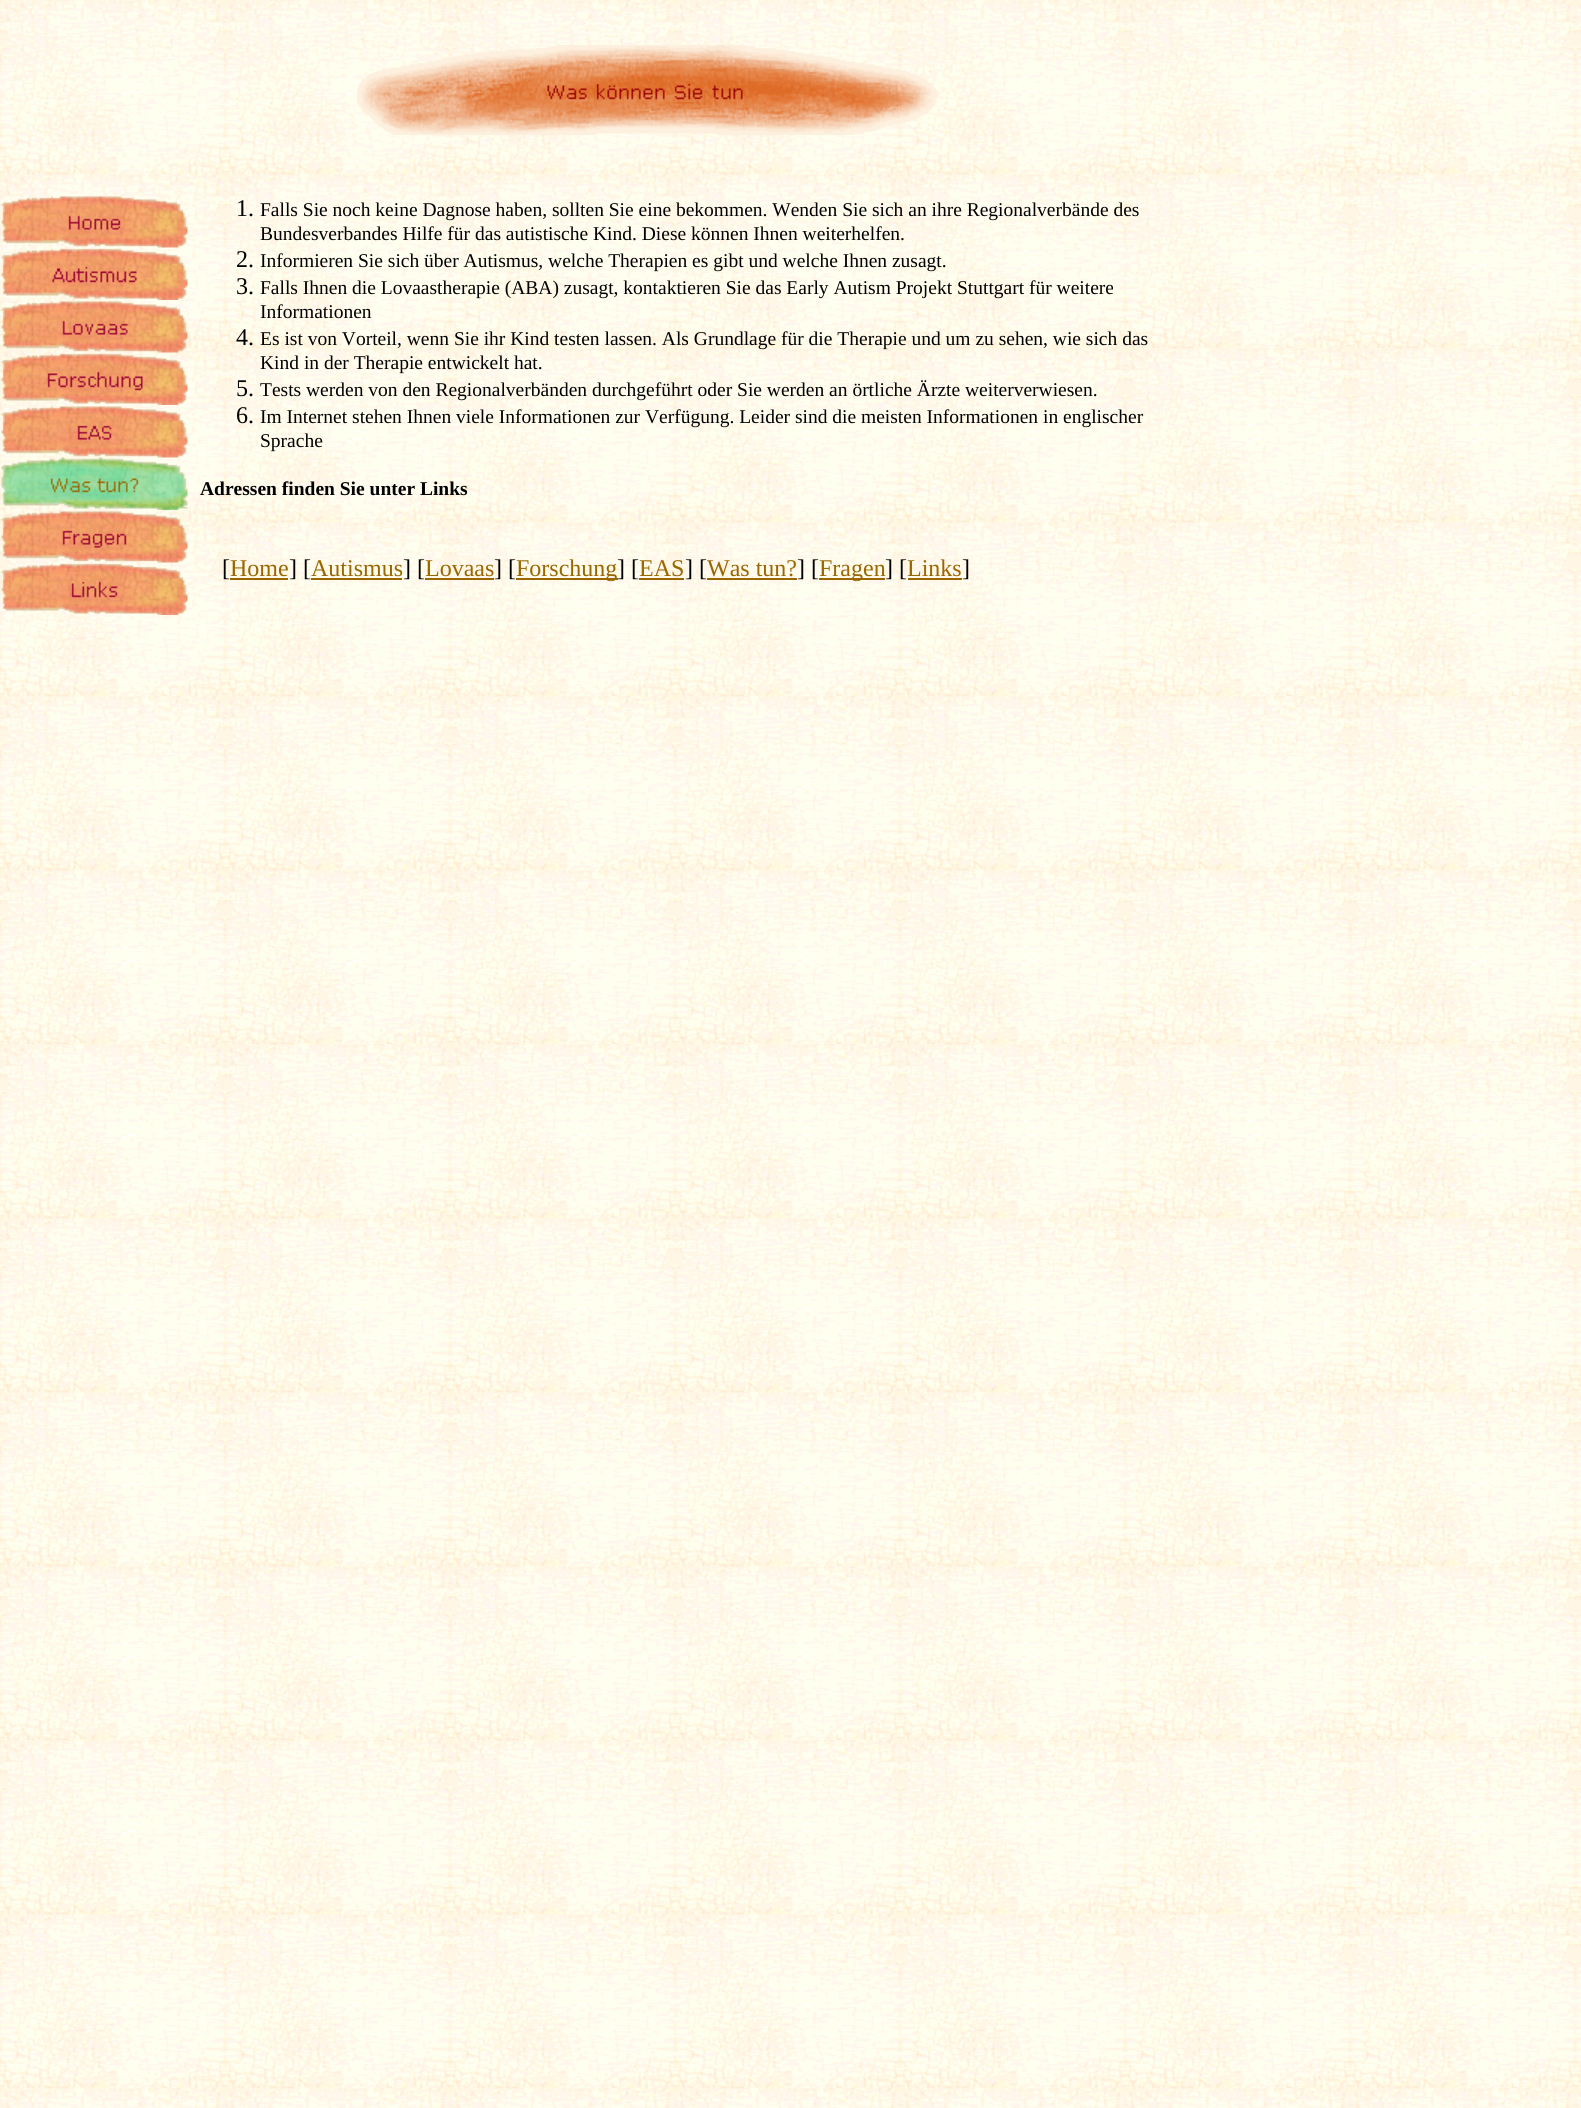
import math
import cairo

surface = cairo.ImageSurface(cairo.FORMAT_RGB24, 1581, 2108)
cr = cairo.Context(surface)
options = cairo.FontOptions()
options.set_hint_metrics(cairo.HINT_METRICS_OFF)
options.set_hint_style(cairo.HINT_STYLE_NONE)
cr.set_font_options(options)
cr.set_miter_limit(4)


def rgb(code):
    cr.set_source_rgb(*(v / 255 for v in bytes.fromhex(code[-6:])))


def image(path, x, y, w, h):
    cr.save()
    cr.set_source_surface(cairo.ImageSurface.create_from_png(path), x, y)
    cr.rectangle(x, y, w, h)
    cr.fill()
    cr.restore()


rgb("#ffffff")
cr.paint()
image("img/1.png", 0, 0, 1581, 2108)
image("img/2.png", 1, 196, 187, 52)
image("img/3.png", 1, 248, 187, 52)
image("img/4.png", 1, 301, 187, 52)
image("img/5.png", 1, 353, 187, 52)
image("img/6.png", 1, 406, 187, 52)
image("img/7.png", 1, 457, 187, 53)
image("img/8.png", 1, 511, 187, 52)
image("img/9.png", 1, 563, 187, 52)
image("img/10.png", 357, 45, 582, 90)
for x, y, w, h, color in [
    (230, 578, 58, 2, "#996600"),
    (311, 578, 91, 2, "#996600"),
    (425, 578, 69, 2, "#996600"),
    (516, 578, 102, 2, "#996600"),
    (639, 578, 45, 2, "#996600"),
    (707, 578, 90, 2, "#996600"),
    (819, 578, 66, 2, "#996600"),
    (908, 578, 54, 2, "#996600"),
]:
    rgb(color)
    cr.rectangle(x, y, w, h)
    cr.fill()
cr.select_font_face("Liberation Serif")
cr.set_font_size(24)
rgb("#000000")
cr.move_to(236, 216)
cr.show_text("1.")
cr.set_font_size(19.5)
cr.move_to(260, 216)
cr.show_text("Falls Sie noch keine Dagnose haben, sollten Sie eine bekommen. Wenden Sie sich an ihre Regionalverbände des")
cr.move_to(260, 240)
cr.show_text("Bundesverbandes Hilfe für das autistische Kind. Diese können Ihnen weiterhelfen.")
cr.set_font_size(24)
cr.move_to(236, 267)
cr.show_text("2.")
cr.set_font_size(19.5)
cr.move_to(260, 267)
cr.show_text("Informieren Sie sich über Autismus, welche Therapien es gibt und welche Ihnen zusagt.")
cr.set_font_size(24)
cr.move_to(236, 294)
cr.show_text("3.")
cr.set_font_size(19.5)
cr.move_to(260, 294)
cr.show_text("Falls Ihnen die Lovaastherapie (ABA) zusagt, kontaktieren Sie das Early Autism Projekt Stuttgart für weitere")
cr.move_to(260, 318)
cr.show_text("Informationen")
cr.set_font_size(24)
cr.move_to(236, 345)
cr.show_text("4.")
cr.set_font_size(19.5)
cr.move_to(260, 345)
cr.show_text("Es ist von Vorteil, wenn Sie ihr Kind testen lassen. Als Grundlage für die Therapie und um zu sehen, wie sich das")
cr.move_to(260, 369)
cr.show_text("Kind in der Therapie entwickelt hat.")
cr.set_font_size(24)
cr.move_to(236, 396)
cr.show_text("5.")
cr.set_font_size(19.5)
cr.move_to(260, 396)
cr.show_text("Tests werden von den Regionalverbänden durchgeführt oder Sie werden an örtliche Ärzte weiterverwiesen.")
cr.set_font_size(24)
cr.move_to(236, 423)
cr.show_text("6.")
cr.set_font_size(19.5)
cr.move_to(260, 423)
cr.show_text("Im Internet stehen Ihnen viele Informationen zur Verfügung. Leider sind die meisten Informationen in englischer")
cr.move_to(260, 447)
cr.show_text("Sprache")
cr.select_font_face("Liberation Serif", cairo.FONT_SLANT_NORMAL, cairo.FONT_WEIGHT_BOLD)
cr.move_to(200, 495)
cr.show_text("Adressen finden Sie unter Links")
cr.select_font_face("Liberation Serif")
cr.set_font_size(24)
cr.move_to(222, 576)
cr.show_text("[")
rgb("#996600")
cr.move_to(230, 576)
cr.show_text("Home")
rgb("#000000")
cr.move_to(289, 576)
cr.show_text("] [")
rgb("#996600")
cr.move_to(311, 576)
cr.show_text("Autismus")
rgb("#000000")
cr.move_to(403, 576)
cr.show_text("] [")
rgb("#996600")
cr.move_to(425, 576)
cr.show_text("Lovaas")
rgb("#000000")
cr.move_to(494, 576)
cr.show_text("] [")
rgb("#996600")
cr.move_to(516, 576)
cr.show_text("Forschung")
rgb("#000000")
cr.move_to(617, 576)
cr.show_text("] [")
rgb("#996600")
cr.move_to(639, 576)
cr.show_text("EAS")
rgb("#000000")
cr.move_to(685, 576)
cr.show_text("] [")
rgb("#996600")
cr.move_to(707, 576)
cr.show_text("Was tun?")
rgb("#000000")
cr.move_to(797, 576)
cr.show_text("] [")
rgb("#996600")
cr.move_to(819, 576)
cr.show_text("Fragen")
rgb("#000000")
cr.move_to(885, 576)
cr.show_text("] [")
rgb("#996600")
cr.move_to(907, 576)
cr.show_text("Links")
rgb("#000000")
cr.move_to(962, 576)
cr.show_text("]")
surface.write_to_png("page.png")
